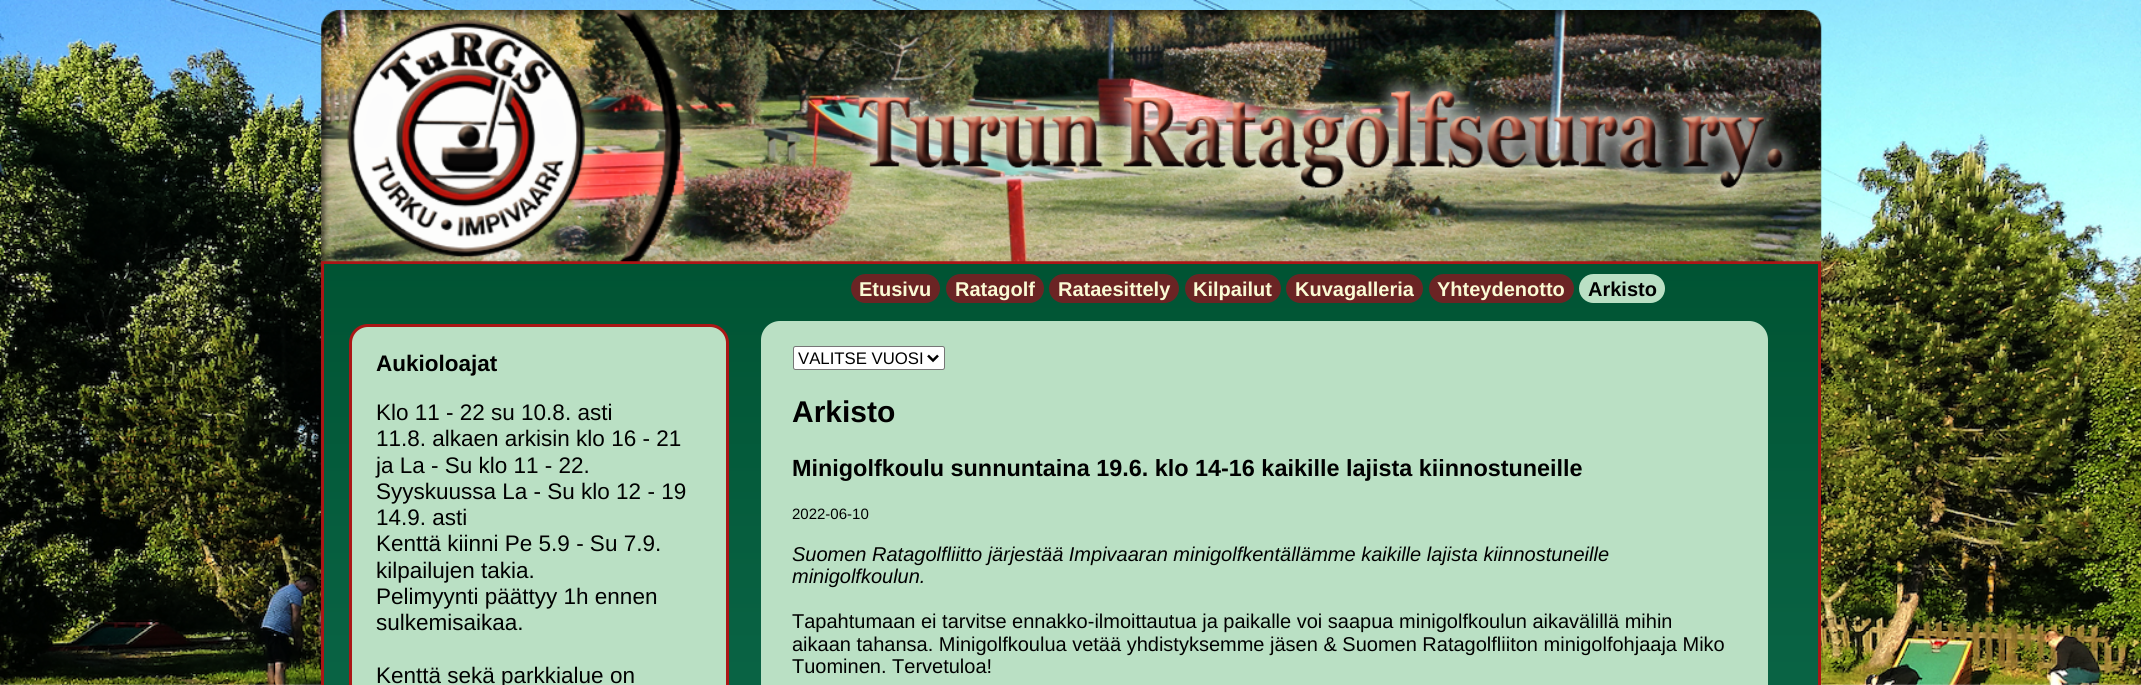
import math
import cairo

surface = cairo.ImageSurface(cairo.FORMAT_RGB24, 2141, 685)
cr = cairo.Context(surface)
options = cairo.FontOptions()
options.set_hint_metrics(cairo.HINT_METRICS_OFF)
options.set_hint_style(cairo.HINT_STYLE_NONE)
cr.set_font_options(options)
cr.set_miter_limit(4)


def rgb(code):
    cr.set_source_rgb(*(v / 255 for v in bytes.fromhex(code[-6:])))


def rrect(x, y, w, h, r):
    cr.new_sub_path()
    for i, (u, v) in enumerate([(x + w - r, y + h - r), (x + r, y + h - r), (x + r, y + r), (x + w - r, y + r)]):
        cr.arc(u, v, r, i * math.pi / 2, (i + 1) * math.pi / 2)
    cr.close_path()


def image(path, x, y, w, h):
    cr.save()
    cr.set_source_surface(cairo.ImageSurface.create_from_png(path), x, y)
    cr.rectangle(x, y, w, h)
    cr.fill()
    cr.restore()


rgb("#ffffff")
cr.paint()
image("img/1.png", 0, 0, 2141, 685)
gradient = cairo.LinearGradient(1071, 264, 1071, 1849)
gradient.add_color_stop_rgba(0, 0, 0.329, 0.2, 1)
gradient.add_color_stop_rgba(1, 0.137, 0.557, 0.459, 1)
cr.set_source(gradient)
cr.rectangle(324, 264, 1494, 421)
cr.fill()
cr.rectangle(322.5, 262.5, 1497, 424)
rgb("#ab1616")
cr.set_line_width(3)
cr.stroke()
image("img/2.png", 321, 10, 1501, 252)
rgb("#6b2424")
rrect(851, 274, 89, 29, 14.5)
cr.fill()
rrect(946, 274, 98, 29, 14.5)
cr.fill()
rrect(1049, 274, 130, 29, 14.5)
cr.fill()
rrect(1185, 274, 96, 29, 14.5)
cr.fill()
rrect(1286, 274, 137, 29, 14.5)
cr.fill()
rrect(1429, 274, 145, 29, 14.5)
cr.fill()
rgb("#bae0c4")
rrect(1579, 274, 86, 29, 14.5)
cr.fill()
rrect(350.5, 325.5, 377, 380, 17.5)
cr.fill_preserve()
rgb("#ab1616")
cr.stroke()
rgb("#bae0c4")
rrect(761, 321, 1007, 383, 19)
cr.fill()
rgb("#ffffff")
rrect(793.5, 346.5, 151, 23, 2)
cr.fill_preserve()
rgb("#767676")
cr.set_line_width(1)
cr.stroke()
cr.new_path()
cr.move_to(928, 355.5)
cr.line_to(933, 360.5)
cr.line_to(938, 355.5)
rgb("#000000")
cr.set_line_width(2.5)
cr.stroke()
cr.select_font_face("Liberation Sans", cairo.FONT_SLANT_NORMAL, cairo.FONT_WEIGHT_BOLD)
cr.set_font_size(20)
rgb("#fafad4")
for x, y, s in [
    (859, 296, "Etusivu"),
    (955, 296, "Ratagolf"),
    (1058, 296, "Rataesittely"),
    (1193, 296, "Kilpailut"),
    (1295, 296, "Kuvagalleria"),
    (1437, 296, "Yhteydenotto"),
]:
    cr.move_to(x, y)
    cr.show_text(s)
rgb("#000000")
cr.move_to(1588, 296)
cr.show_text("Arkisto")
cr.set_font_size(22.5)
cr.move_to(376, 371)
cr.show_text("Aukioloajat")
cr.select_font_face("Liberation Sans")
for x, y, s in [
    (376, 420, "Klo 11 - 22 su 10.8. asti"),
    (376, 446, "11.8. alkaen arkisin klo 16 - 21"),
    (376, 473, "ja La - Su klo 11 - 22."),
    (376, 499, "Syyskuussa La - Su klo 12 - 19"),
    (376, 525, "14.9. asti"),
    (376, 551, "Kenttä kiinni Pe 5.9 - Su 7.9."),
    (376, 578, "kilpailujen takia."),
    (376, 604, "Pelimyynti päättyy 1h ennen"),
    (376, 630, "sulkemisaikaa."),
    (376, 683, "Kenttä sekä parkkialue on"),
]:
    cr.move_to(x, y)
    cr.show_text(s)
cr.set_font_size(16.75)
cr.move_to(798, 364)
cr.show_text("VALITSE VUOSI")
cr.select_font_face("Liberation Sans", cairo.FONT_SLANT_NORMAL, cairo.FONT_WEIGHT_BOLD)
cr.set_font_size(30)
cr.move_to(792, 422)
cr.show_text("Arkisto")
cr.set_font_size(23.4)
cr.move_to(792, 476)
cr.show_text("Minigolfkoulu sunnuntaina 19.6. klo 14-16 kaikille lajista kiinnostuneille")
cr.select_font_face("Liberation Sans")
cr.set_font_size(15)
cr.move_to(792, 519)
cr.show_text("2022-06-10")
cr.select_font_face("Liberation Sans", cairo.FONT_SLANT_ITALIC)
cr.set_font_size(20)
cr.move_to(792, 561)
cr.show_text("Suomen Ratagolfliitto järjestää Impivaaran minigolfkentällämme kaikille lajista kiinnostuneille")
cr.move_to(792, 583)
cr.show_text("minigolfkoulun.")
cr.select_font_face("Liberation Sans")
for x, y, s in [
    (792, 628, "Tapahtumaan ei tarvitse ennakko-ilmoittautua ja paikalle voi saapua minigolfkoulun aikavälillä mihin"),
    (792, 651, "aikaan tahansa. Minigolfkoulua vetää yhdistyksemme jäsen & Suomen Ratagolfliiton minigolfohjaaja Miko"),
    (792, 673, "Tuominen. Tervetuloa!"),
]:
    cr.move_to(x, y)
    cr.show_text(s)
surface.write_to_png("page.png")
